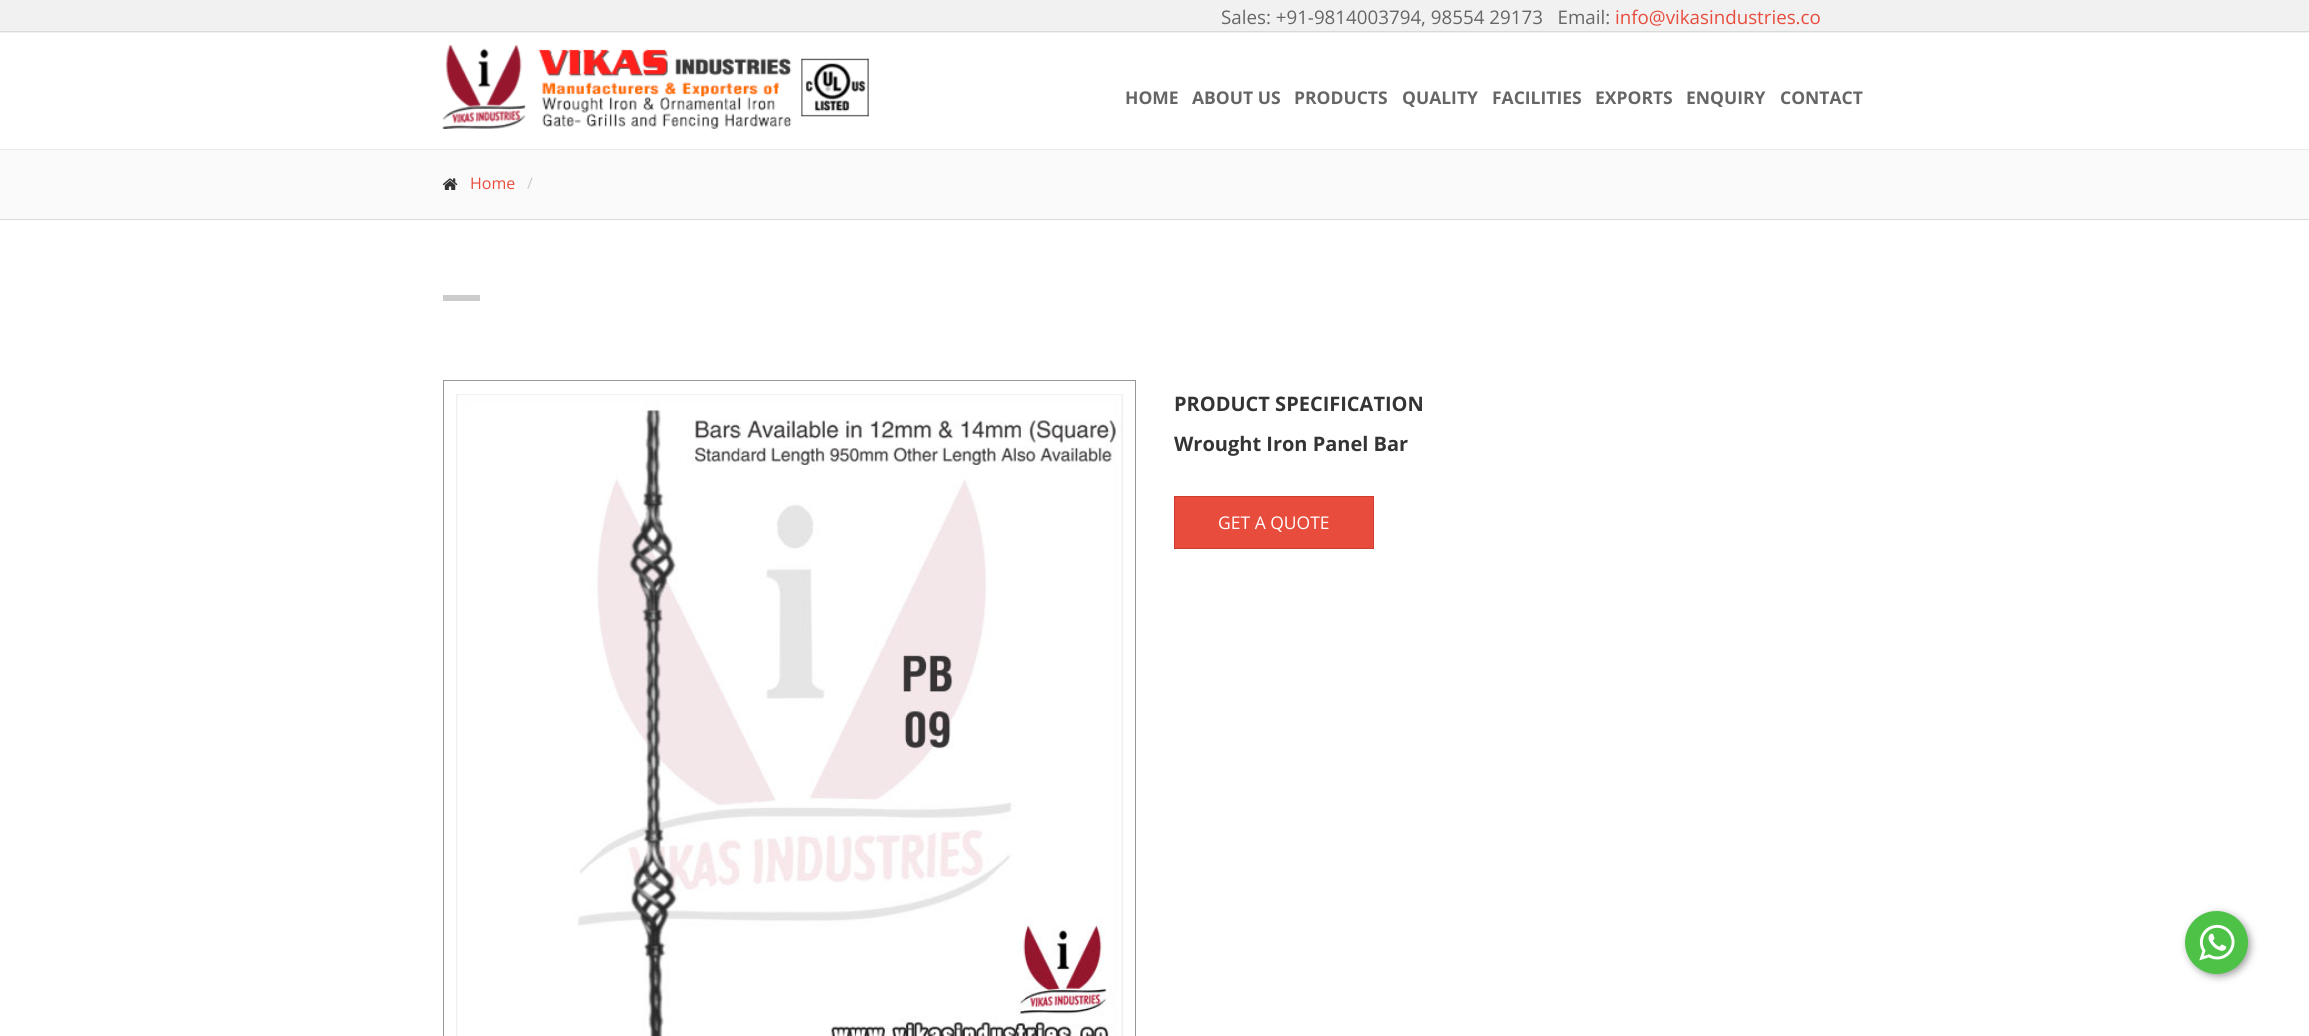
import math
import cairo

surface = cairo.ImageSurface(cairo.FORMAT_RGB24, 2309, 1036)
cr = cairo.Context(surface)
options = cairo.FontOptions()
options.set_hint_metrics(cairo.HINT_METRICS_OFF)
options.set_hint_style(cairo.HINT_STYLE_NONE)
cr.set_font_options(options)
cr.set_miter_limit(4)


def rgb(code):
    cr.set_source_rgb(*(v / 255 for v in bytes.fromhex(code[-6:])))


def rrect(x, y, w, h, r):
    cr.new_sub_path()
    for i, (u, v) in enumerate([(x + w - r, y + h - r), (x + r, y + h - r), (x + r, y + r), (x + w - r, y + r)]):
        cr.arc(u, v, r, i * math.pi / 2, (i + 1) * math.pi / 2)
    cr.close_path()


def soft_shadow(x, y, w, h, r, blur, alpha):
    cr.push_group_with_content(cairo.CONTENT_ALPHA)
    cr.set_operator(cairo.OPERATOR_SOURCE)
    for i in range(15, -16, -2):
        e = blur * i / 6
        if min(w, h) + 2 * e > 0:
            cr.set_source_rgba(0, 0, 0, alpha * math.erfc((i - 1) / 8.5) / 2)
            rrect(x - e, y - e, w + 2 * e, h + 2 * e, max(0, min(r + e + blur * .6, min(w, h) / 2 + e)))
            cr.fill()
    cr.mask(cr.pop_group())


def image(path, x, y, w, h):
    cr.save()
    cr.set_source_surface(cairo.ImageSurface.create_from_png(path), x, y)
    cr.rectangle(x, y, w, h)
    cr.fill()
    cr.restore()


rgb("#ffffff")
cr.paint()
for x, y, w, h, color in [
    (0, 0, 2309, 33, "#f1f1f1"),
    (0, 31, 2309, 1, "#dadada"),
    (0, 149, 2309, 1, "#eaeaea"),
]:
    rgb(color)
    cr.rectangle(x, y, w, h)
    cr.fill()
image("img/1.png", 442, 45, 427, 84)
rgb("#fafafa")
cr.rectangle(0, 150, 2309, 69)
cr.fill()
rgb("#dadada")
cr.rectangle(0, 219, 2309, 1)
cr.fill()
image("img/2.png", 442, 178, 16, 12)
rgb("#cccccc")
cr.rectangle(443, 295, 37, 6)
cr.fill()
cr.rectangle(443.5, 380.5, 692, 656)
rgb("#999999")
cr.set_line_width(1)
cr.stroke()
image("img/3.png", 456, 394, 667, 642)
rgb("#e84c3d")
cr.rectangle(1174.5, 496.5, 199, 52)
cr.fill_preserve()
rgb("#cd3c2e")
cr.stroke()
rgb("#000000")
soft_shadow(2188, 914, 62, 62, 31, 4, 0.4)
rgb("#4dc247")
cr.arc(2216.5, 942.5, 31.5, 0, 2 * math.pi)
cr.fill()
image("img/4.png", 2199, 924, 36, 37)
cr.select_font_face("Open Sans")
cr.set_font_size(18.75)
rgb("#666666")
cr.move_to(1221, 24)
cr.show_text("Sales: +91-9814003794, 98554 29173   Email:")
rgb("#e84c3d")
cr.move_to(1615, 24)
cr.show_text("info@vikasindustries.co")
cr.select_font_face("Open Sans", cairo.FONT_SLANT_NORMAL, cairo.FONT_WEIGHT_BOLD)
cr.set_font_size(17.5)
rgb("#666666")
for x, y, s in [
    (1125, 104, "HOME"),
    (1192, 104, "ABOUT US"),
    (1294, 104, "PRODUCTS"),
    (1402, 104, "QUALITY"),
    (1492, 104, "FACILITIES"),
    (1595, 104, "EXPORTS"),
    (1686, 104, "ENQUIRY"),
    (1780, 104, "CONTACT"),
]:
    cr.move_to(x, y)
    cr.show_text(s)
cr.select_font_face("Open Sans")
cr.set_font_size(16)
rgb("#e84c3d")
cr.move_to(470, 189)
cr.show_text("Home")
rgb("#cccccc")
cr.move_to(527, 189)
cr.show_text("/")
cr.select_font_face("Open Sans", cairo.FONT_SLANT_NORMAL, cairo.FONT_WEIGHT_BOLD)
cr.set_font_size(20)
rgb("#343434")
cr.move_to(1174, 411)
cr.show_text("PRODUCT SPECIFICATION")
cr.move_to(1174, 451)
cr.show_text("Wrought Iron Panel Bar")
cr.select_font_face("Open Sans")
cr.set_font_size(17.5)
rgb("#ffffff")
cr.move_to(1218, 529)
cr.show_text("GET A QUOTE")
surface.write_to_png("page.png")
